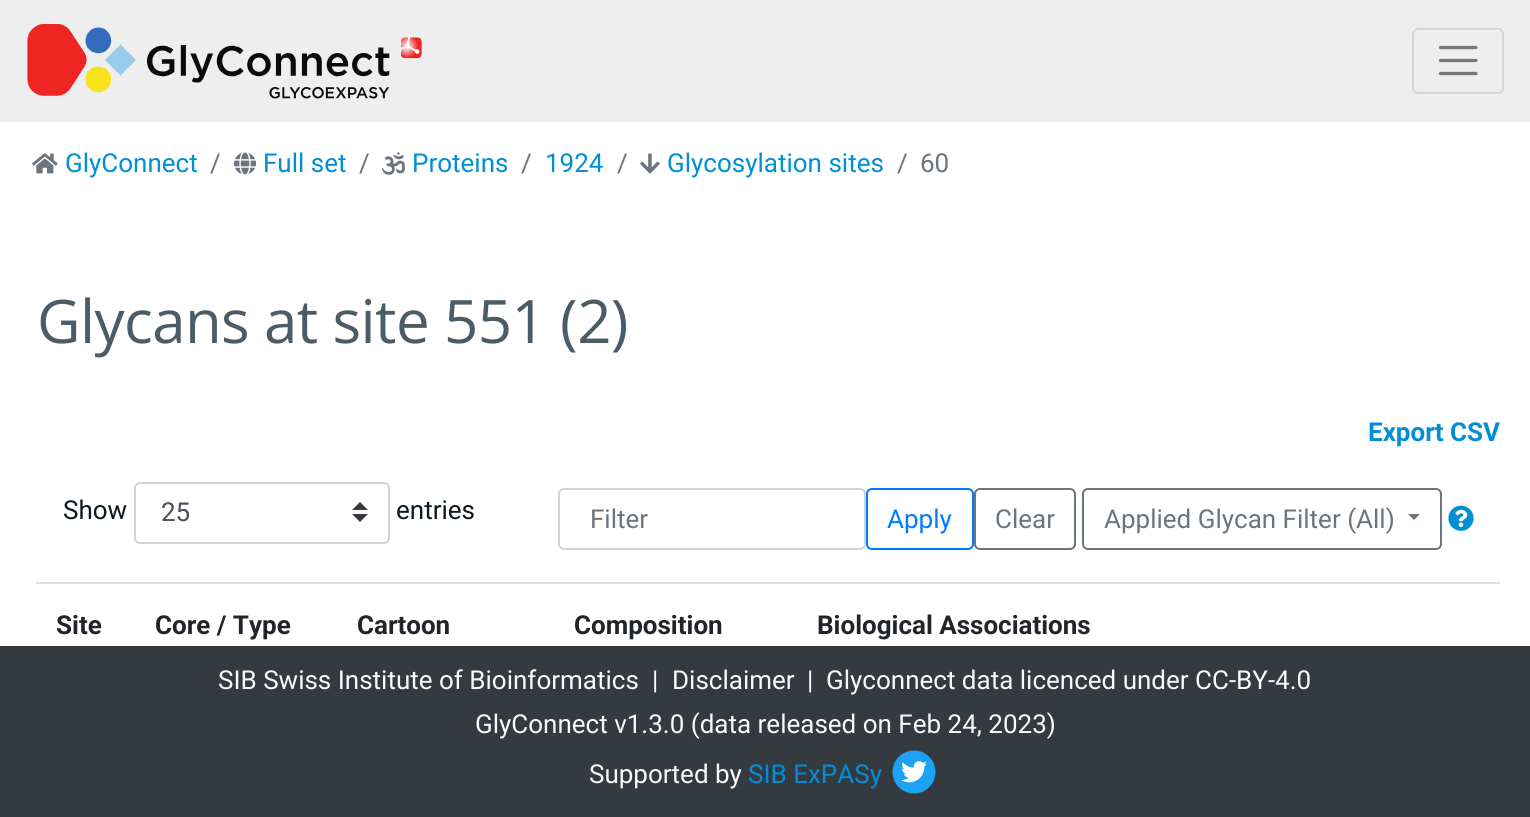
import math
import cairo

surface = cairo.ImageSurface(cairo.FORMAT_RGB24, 1530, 817)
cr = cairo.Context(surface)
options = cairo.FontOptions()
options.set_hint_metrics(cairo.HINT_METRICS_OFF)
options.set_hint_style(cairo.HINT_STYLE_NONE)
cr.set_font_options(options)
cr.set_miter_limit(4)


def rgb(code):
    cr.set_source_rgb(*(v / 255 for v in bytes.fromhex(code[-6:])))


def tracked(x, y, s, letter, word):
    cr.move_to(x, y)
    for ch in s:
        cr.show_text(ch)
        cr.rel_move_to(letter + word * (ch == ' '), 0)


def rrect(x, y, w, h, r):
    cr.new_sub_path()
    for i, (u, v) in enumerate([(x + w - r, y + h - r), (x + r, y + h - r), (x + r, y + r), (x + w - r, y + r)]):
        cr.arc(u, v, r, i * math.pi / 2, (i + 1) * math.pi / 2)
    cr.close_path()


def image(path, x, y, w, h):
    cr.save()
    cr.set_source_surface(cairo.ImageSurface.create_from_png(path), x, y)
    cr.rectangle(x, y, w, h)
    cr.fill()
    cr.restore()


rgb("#ffffff")
cr.paint()
rgb("#eeeeee")
cr.rectangle(0, 0, 1530, 122)
cr.fill()
image("img/1.png", 27, 24, 395, 75)
rrect(1413, 29, 90, 64, 5)
rgb("#d6d6d6")
cr.stroke()
cr.new_path()
cr.move_to(1440.5, 47.5)
cr.line_to(1476, 47.5)
cr.move_to(1440.5, 60.5)
cr.line_to(1476, 60.5)
cr.move_to(1440.5, 73.5)
cr.line_to(1476, 73.5)
rgb("#777777")
cr.set_line_width(3.2)
cr.set_line_cap(cairo.LINE_CAP_ROUND)
cr.stroke()
image("img/2.png", 32, 153, 26, 21)
image("img/3.png", 234, 152, 22, 23)
image("img/4.png", 382, 152, 23, 23)
image("img/5.png", 640, 153, 20, 21)
rgb("#343a40")
cr.new_path()
cr.move_to(360, 502)
cr.line_to(352, 510)
cr.line_to(368, 510)
cr.close_path()
cr.move_to(360, 522)
cr.line_to(352, 514)
cr.line_to(368, 514)
cr.close_path()
cr.fill()
rrect(135, 483, 254, 60, 5)
rgb("#ced4da")
cr.set_line_width(2)
cr.set_line_cap(cairo.LINE_CAP_BUTT)
cr.stroke()
rrect(559, 489, 306, 60, 5)
cr.stroke()
rrect(867, 489, 106, 60, 5)
rgb("#007bff")
cr.stroke()
rrect(975, 489, 100, 60, 5)
rgb("#6c757d")
cr.stroke()
rrect(1083, 489, 358, 60, 5)
cr.stroke()
cr.new_path()
cr.move_to(1408, 514)
cr.line_to(1420, 514)
cr.line_to(1414, 520)
cr.close_path()
cr.fill()
image("img/6.png", 1448, 505, 26, 26)
rgb("#dee2e6")
cr.rectangle(36, 582, 1464, 2)
cr.fill()
rgb("#343a40")
cr.rectangle(0, 646, 1530, 171)
cr.fill()
image("img/7.png", 892, 750, 44, 44)
cr.select_font_face("Roboto")
cr.set_font_size(26)
rgb("#008fd5")
cr.move_to(65, 172)
cr.show_text("GlyConnect")
rgb("#6c757d")
cr.move_to(210, 172)
cr.show_text("/")
rgb("#008fd5")
cr.move_to(263, 172)
cr.show_text("Full set")
rgb("#6c757d")
cr.move_to(359, 172)
cr.show_text("/")
rgb("#008fd5")
cr.move_to(412, 172)
cr.show_text("Proteins")
rgb("#6c757d")
cr.move_to(521, 172)
cr.show_text("/")
rgb("#008fd5")
cr.move_to(545, 172)
cr.show_text("1924")
rgb("#6c757d")
cr.move_to(617, 172)
cr.show_text("/")
rgb("#008fd5")
cr.move_to(667, 172)
cr.show_text("Glycosylation sites")
rgb("#6c757d")
cr.move_to(897, 172)
cr.show_text("/")
cr.move_to(920, 172)
cr.show_text("60")
cr.select_font_face("Open Sans")
cr.set_font_size(60)
rgb("#4b5c66")
tracked(37, 343, "Glycans at site 551 (2)", -0.6, 0)
cr.select_font_face("Roboto", cairo.FONT_SLANT_NORMAL, cairo.FONT_WEIGHT_BOLD)
cr.set_font_size(26)
rgb("#008fd5")
cr.move_to(1368, 441)
cr.show_text("Export CSV")
cr.select_font_face("Roboto")
rgb("#0c171e")
cr.move_to(63, 519)
cr.show_text("Show")
rgb("#495057")
cr.move_to(161, 521)
cr.show_text("25")
rgb("#0c171e")
cr.move_to(396, 519)
cr.show_text("entries")
rgb("#6c757d")
cr.move_to(590, 528)
cr.show_text("Filter")
rgb("#007bff")
cr.move_to(887, 528)
cr.show_text("Apply")
rgb("#6c757d")
cr.move_to(995, 528)
cr.show_text("Clear")
cr.move_to(1104, 528)
cr.show_text("Applied Glycan Filter (All)")
cr.select_font_face("Roboto", cairo.FONT_SLANT_NORMAL, cairo.FONT_WEIGHT_BOLD)
rgb("#212529")
for x, y, s in [
    (56, 634, "Site"),
    (155, 634, "Core / Type"),
    (357, 634, "Cartoon"),
    (574, 634, "Composition"),
    (817, 634, "Biological Associations"),
]:
    cr.move_to(x, y)
    cr.show_text(s)
cr.select_font_face("Roboto")
rgb("#f8f9fa")
for x, y, s in [
    (218, 689, "SIB Swiss Institute of Bioinformatics"),
    (652, 689, "|"),
    (672, 689, "Disclaimer"),
    (807, 689, "|"),
    (826, 689, "Glyconnect data licenced under CC-BY-4.0"),
    (475, 733, "GlyConnect v1.3.0 (data released on Feb 24, 2023)"),
    (589, 783, "Supported by"),
]:
    cr.move_to(x, y)
    cr.show_text(s)
rgb("#008fd5")
cr.move_to(748, 783)
cr.show_text("SIB ExPASy")
surface.write_to_png("page.png")
